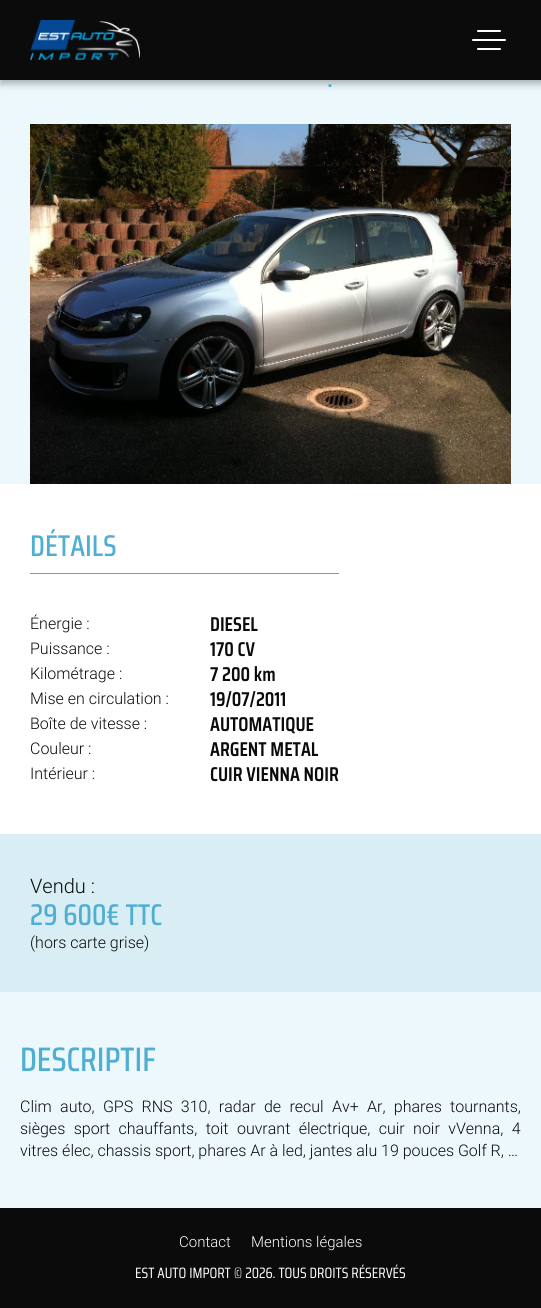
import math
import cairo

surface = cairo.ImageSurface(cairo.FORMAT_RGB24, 541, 1308)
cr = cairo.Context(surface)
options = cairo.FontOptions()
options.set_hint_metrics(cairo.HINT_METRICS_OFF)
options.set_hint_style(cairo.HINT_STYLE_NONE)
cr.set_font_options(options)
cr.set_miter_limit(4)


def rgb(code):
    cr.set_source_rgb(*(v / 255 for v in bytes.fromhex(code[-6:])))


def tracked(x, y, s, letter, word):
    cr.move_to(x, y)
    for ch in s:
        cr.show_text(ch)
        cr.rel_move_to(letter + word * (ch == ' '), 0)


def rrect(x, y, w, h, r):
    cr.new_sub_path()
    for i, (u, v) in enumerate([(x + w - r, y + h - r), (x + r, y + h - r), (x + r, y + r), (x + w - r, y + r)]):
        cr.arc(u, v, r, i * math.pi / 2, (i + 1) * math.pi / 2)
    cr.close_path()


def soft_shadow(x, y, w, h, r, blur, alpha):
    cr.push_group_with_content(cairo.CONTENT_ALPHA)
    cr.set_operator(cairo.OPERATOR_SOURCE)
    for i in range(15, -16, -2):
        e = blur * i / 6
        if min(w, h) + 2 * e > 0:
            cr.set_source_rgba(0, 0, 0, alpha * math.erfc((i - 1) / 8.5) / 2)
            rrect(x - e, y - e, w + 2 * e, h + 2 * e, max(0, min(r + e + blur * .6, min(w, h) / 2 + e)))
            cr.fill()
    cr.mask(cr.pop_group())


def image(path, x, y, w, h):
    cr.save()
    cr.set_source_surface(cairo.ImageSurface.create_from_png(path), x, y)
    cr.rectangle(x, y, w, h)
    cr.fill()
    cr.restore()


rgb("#ecf8fc")
cr.paint()
rgb("#0b0b0b")
soft_shadow(0, -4, 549, 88, 0, 3.5, 0.3)
rgb("#0b0b0b")
cr.rectangle(0, 0, 541, 80)
cr.fill()
image("img/1.png", 30, 20, 110, 40)
rgb("#ffffff")
rrect(477, 30, 24, 2, 1)
cr.fill()
rrect(472, 39, 34, 2, 1)
cr.fill()
rrect(477, 48, 24, 2, 1)
cr.fill()
image("img/2.png", 30, 124, 481, 360)
for x, y, w, h, color in [
    (0, 484, 541, 350, "#ffffff"),
    (30, 573, 309, 1, "#4faed1"),
    (0, 834, 541, 158, "#d9edf4"),
    (0, 1208, 541, 100, "#0b0b0b"),
]:
    rgb(color)
    cr.rectangle(x, y, w, h)
    cr.fill()
cr.select_font_face("Saira Condensed Medium")
cr.set_font_size(28)
rgb("#4faed1")
cr.move_to(327, 87)
cr.show_text(".")
cr.set_font_size(30)
cr.move_to(30, 556)
cr.show_text("DÉTAILS")
cr.select_font_face("Roboto Light")
cr.set_font_size(16)
rgb("#0b0b0b")
cr.move_to(30, 629)
cr.show_text("Énergie :")
cr.select_font_face("Saira Condensed SemiBold")
cr.set_font_size(20)
cr.move_to(210, 631)
cr.show_text("DIESEL")
cr.select_font_face("Roboto Light")
cr.set_font_size(16)
cr.move_to(30, 654)
cr.show_text("Puissance :")
cr.select_font_face("Saira Condensed SemiBold")
cr.set_font_size(20)
cr.move_to(210, 656)
cr.show_text("170 CV")
cr.select_font_face("Roboto Light")
cr.set_font_size(16)
cr.move_to(30, 679)
cr.show_text("Kilométrage :")
cr.select_font_face("Saira Condensed SemiBold")
cr.set_font_size(20)
cr.move_to(210, 681)
cr.show_text("7 200 km")
cr.select_font_face("Roboto Light")
cr.set_font_size(16)
cr.move_to(30, 704)
cr.show_text("Mise en circulation :")
cr.select_font_face("Saira Condensed SemiBold")
cr.set_font_size(20)
cr.move_to(210, 706)
cr.show_text("19/07/2011")
cr.select_font_face("Roboto Light")
cr.set_font_size(16)
cr.move_to(30, 729)
cr.show_text("Boîte de vitesse :")
cr.select_font_face("Saira Condensed SemiBold")
cr.set_font_size(20)
cr.move_to(210, 731)
cr.show_text("AUTOMATIQUE")
cr.select_font_face("Roboto Light")
cr.set_font_size(16)
cr.move_to(30, 754)
cr.show_text("Couleur :")
cr.select_font_face("Saira Condensed SemiBold")
cr.set_font_size(20)
cr.move_to(210, 756)
cr.show_text("ARGENT METAL")
cr.select_font_face("Roboto Light")
cr.set_font_size(16)
cr.move_to(30, 779)
cr.show_text("Intérieur :")
cr.select_font_face("Saira Condensed SemiBold")
cr.set_font_size(20)
cr.move_to(210, 781)
cr.show_text("CUIR VIENNA NOIR")
cr.select_font_face("Roboto Light")
cr.move_to(30, 893)
cr.show_text("Vendu :")
cr.select_font_face("Saira Condensed Medium")
cr.set_font_size(30)
rgb("#4faed1")
cr.move_to(30, 925)
cr.show_text("29 600€ TTC")
cr.select_font_face("Roboto Light")
cr.set_font_size(16)
rgb("#0b0b0b")
cr.move_to(30, 948)
cr.show_text("(hors carte grise)")
cr.select_font_face("Saira Condensed Medium")
cr.set_font_size(34)
rgb("#4faed1")
cr.move_to(20, 1071)
cr.show_text("DESCRIPTIF")
cr.select_font_face("Roboto Light")
cr.set_font_size(16)
rgb("#0b0b0b")
tracked(20, 1112, "Clim auto, GPS RNS 310, radar de recul Av+ Ar, phares tournants,", 0, 4.4)
tracked(20, 1134, "sièges sport chauffants, toit ouvrant électrique, cuir noir vVenna, 4", 0, 4.5)
cr.move_to(20, 1156)
cr.show_text("vitres élec, chassis sport, phares Ar à led, jantes alu 19 pouces Golf R, …")
cr.set_font_size(15)
rgb("#ffffff")
cr.move_to(179, 1247)
cr.show_text("Contact")
cr.move_to(251, 1247)
cr.show_text("Mentions légales")
cr.select_font_face("Saira Condensed")
cr.move_to(135, 1278)
cr.show_text("EST AUTO IMPORT © 2026. TOUS DROITS RÉSERVÉS")
surface.write_to_png("page.png")
